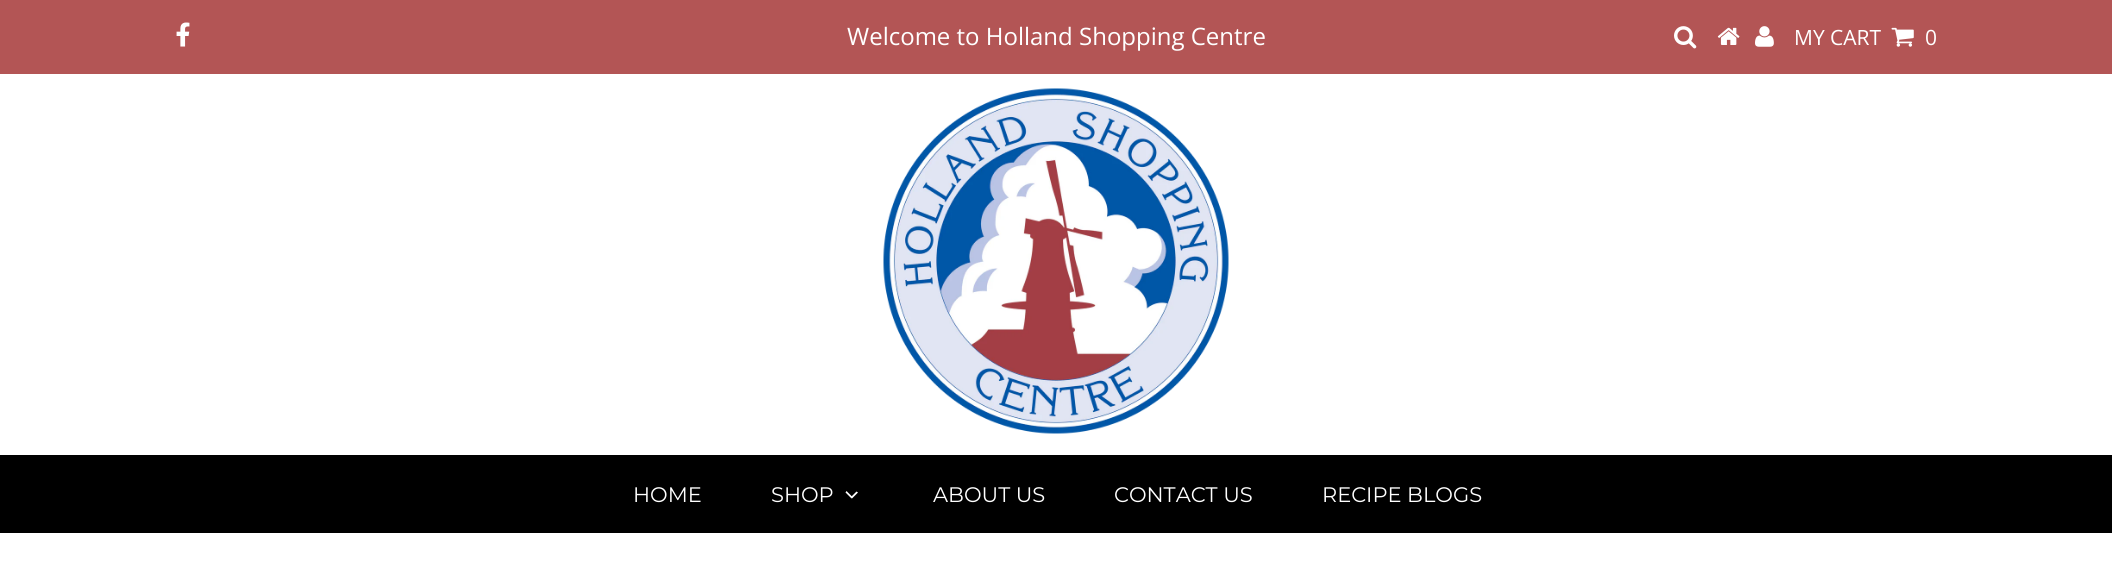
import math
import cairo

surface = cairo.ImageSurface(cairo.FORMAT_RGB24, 2112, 561)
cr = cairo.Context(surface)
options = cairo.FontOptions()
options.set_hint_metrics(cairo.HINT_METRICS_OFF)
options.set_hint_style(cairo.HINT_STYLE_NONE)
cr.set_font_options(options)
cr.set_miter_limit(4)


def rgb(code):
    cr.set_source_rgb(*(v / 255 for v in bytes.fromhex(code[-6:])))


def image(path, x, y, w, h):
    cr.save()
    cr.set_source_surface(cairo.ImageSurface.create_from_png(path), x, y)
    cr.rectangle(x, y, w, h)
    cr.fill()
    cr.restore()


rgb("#ffffff")
cr.paint()
rgb("#b35555")
cr.rectangle(0, 0, 2112, 74)
cr.fill()
image("img/1.png", 176, 22, 14, 25)
image("img/2.png", 1674, 26, 23, 23)
image("img/3.png", 1717, 27, 23, 18)
image("img/4.png", 1755, 26, 19, 21)
image("img/5.png", 1891, 27, 23, 20)
image("img/6.png", 883, 88, 346, 346)
rgb("#000000")
cr.rectangle(0, 455, 2112, 78)
cr.fill()
rgb("#ffffff")
cr.new_path()
cr.move_to(856.5, 491.5)
cr.line_to(858, 492.5)
cr.line_to(852, 498.5)
cr.line_to(851, 497)
cr.close_path()
cr.fill()
cr.new_path()
cr.move_to(846.5, 491)
cr.line_to(852.5, 497)
cr.line_to(851.5, 498.5)
cr.line_to(845.5, 492.5)
cr.close_path()
cr.fill()
cr.select_font_face("Open Sans")
cr.set_font_size(24)
cr.move_to(847, 45)
cr.show_text("Welcome to Holland Shopping Centre")
cr.set_font_size(21)
cr.move_to(1794, 45)
cr.show_text("MY CART")
cr.move_to(1925, 45)
cr.show_text("0")
cr.select_font_face("Montserrat Thin")
for x, y, s in [
    (633, 502, "HOME"),
    (771, 502, "SHOP"),
    (933, 502, "ABOUT US"),
    (1114, 502, "CONTACT US"),
    (1322, 502, "RECIPE BLOGS"),
]:
    cr.move_to(x, y)
    cr.show_text(s)
surface.write_to_png("page.png")
